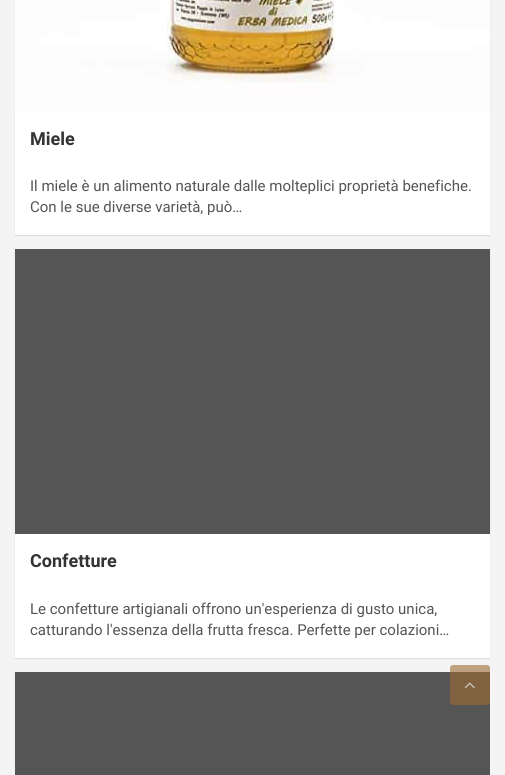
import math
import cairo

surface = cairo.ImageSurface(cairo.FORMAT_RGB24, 505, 775)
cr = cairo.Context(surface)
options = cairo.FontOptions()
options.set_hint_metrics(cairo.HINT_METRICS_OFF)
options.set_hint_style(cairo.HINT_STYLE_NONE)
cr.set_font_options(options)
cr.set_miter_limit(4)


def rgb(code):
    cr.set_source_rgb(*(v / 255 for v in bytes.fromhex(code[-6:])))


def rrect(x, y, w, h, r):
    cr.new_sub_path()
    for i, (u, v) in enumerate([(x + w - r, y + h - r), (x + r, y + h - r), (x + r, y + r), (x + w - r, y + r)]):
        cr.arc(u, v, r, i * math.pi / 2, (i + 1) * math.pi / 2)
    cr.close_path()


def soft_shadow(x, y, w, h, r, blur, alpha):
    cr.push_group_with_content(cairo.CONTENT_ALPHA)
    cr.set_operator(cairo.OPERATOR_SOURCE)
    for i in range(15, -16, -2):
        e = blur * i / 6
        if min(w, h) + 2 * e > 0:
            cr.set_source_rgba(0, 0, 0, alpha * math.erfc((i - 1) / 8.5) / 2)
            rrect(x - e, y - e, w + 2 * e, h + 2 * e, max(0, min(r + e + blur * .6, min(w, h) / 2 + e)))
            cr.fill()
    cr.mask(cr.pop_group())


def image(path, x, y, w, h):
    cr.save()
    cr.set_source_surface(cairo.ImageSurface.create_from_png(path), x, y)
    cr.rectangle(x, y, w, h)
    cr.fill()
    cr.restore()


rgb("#f4f4f4")
cr.paint()
rgb("#000000")
soft_shadow(15, -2, 475, 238, 0, 0.5, 0.1)
rgb("#ffffff")
cr.rectangle(15, 112, 475, 123)
cr.fill()
image("img/1.png", 15, 0, 475, 112)
rgb("#000000")
soft_shadow(15, 250, 475, 409, 0, 0.5, 0.1)
for x, y, w, h, color in [
    (15, 534, 475, 124, "#ffffff"),
    (15, 249, 475, 285, "#555555"),
    (15, 672, 475, 103, "#555555"),
]:
    rgb(color)
    cr.rectangle(x, y, w, h)
    cr.fill()
cr.set_source_rgba(0.612, 0.42, 0.2, 0.6)
rrect(450, 665, 40, 40, 3)
cr.fill()
image("img/2.png", 464, 682, 11, 7)
cr.select_font_face("Roboto", cairo.FONT_SLANT_NORMAL, cairo.FONT_WEIGHT_BOLD)
cr.set_font_size(18)
rgb("#333333")
cr.move_to(30, 145)
cr.show_text("Miele")
cr.select_font_face("Roboto")
cr.set_font_size(15)
rgb("#555555")
cr.move_to(30, 191)
cr.show_text("Il miele è un alimento naturale dalle molteplici proprietà benefiche.")
cr.move_to(30, 212)
cr.show_text("Con le sue diverse varietà, può…")
cr.select_font_face("Roboto", cairo.FONT_SLANT_NORMAL, cairo.FONT_WEIGHT_BOLD)
cr.set_font_size(18)
rgb("#333333")
cr.move_to(30, 567)
cr.show_text("Confetture")
cr.select_font_face("Roboto")
cr.set_font_size(15)
rgb("#555555")
cr.move_to(30, 614)
cr.show_text("Le confetture artigianali offrono un'esperienza di gusto unica,")
cr.move_to(30, 635)
cr.show_text("catturando l'essenza della frutta fresca. Perfette per colazioni…")
surface.write_to_png("page.png")
